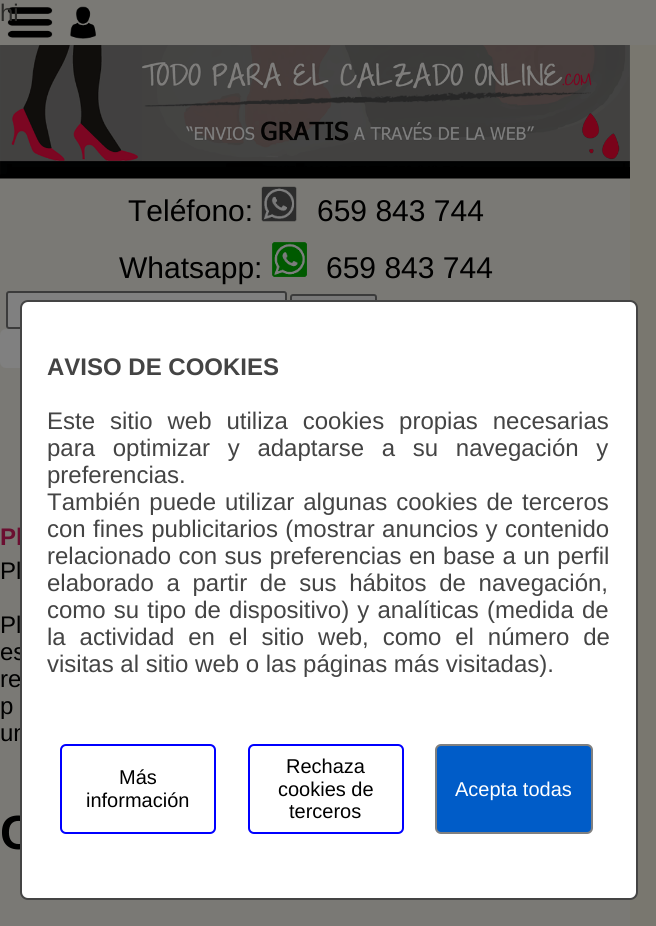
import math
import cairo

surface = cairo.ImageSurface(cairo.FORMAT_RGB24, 656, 926)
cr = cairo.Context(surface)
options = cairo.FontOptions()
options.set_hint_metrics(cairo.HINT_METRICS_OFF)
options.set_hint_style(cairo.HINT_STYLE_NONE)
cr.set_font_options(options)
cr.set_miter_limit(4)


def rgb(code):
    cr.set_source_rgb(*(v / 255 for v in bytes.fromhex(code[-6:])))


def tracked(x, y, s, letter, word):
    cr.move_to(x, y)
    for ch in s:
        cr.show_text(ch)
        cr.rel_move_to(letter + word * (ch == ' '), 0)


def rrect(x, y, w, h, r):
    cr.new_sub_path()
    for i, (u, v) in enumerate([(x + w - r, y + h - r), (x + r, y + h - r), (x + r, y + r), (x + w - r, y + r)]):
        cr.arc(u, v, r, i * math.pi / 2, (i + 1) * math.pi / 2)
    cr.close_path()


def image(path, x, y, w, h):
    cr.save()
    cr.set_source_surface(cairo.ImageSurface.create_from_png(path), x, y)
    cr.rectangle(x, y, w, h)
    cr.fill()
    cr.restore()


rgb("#79776f")
cr.paint()
rgb("#7a7975")
cr.rectangle(0, 178, 630, 748)
cr.fill()
cr.rectangle(0, 0, 656, 45)
cr.fill()
image("img/1.png", 7, 7, 46, 31)
image("img/2.png", 70, 6, 26, 33)
image("img/3.png", 0, 45, 630, 134)
image("img/4.png", 261, 186, 36, 36)
image("img/5.png", 272, 242, 35, 35)
rgb("#808080")
rrect(7, 292, 279, 36, 2)
cr.fill_preserve()
rgb("#3b3b3b")
cr.stroke()
rgb("#787878")
rrect(291, 295, 85, 30, 2)
cr.fill_preserve()
rgb("#3b3b3b")
cr.stroke()
rgb("#808080")
rrect(3, 332, 612, 33, 3)
cr.fill_preserve()
cr.set_line_width(6)
cr.stroke()
cr.select_font_face("Liberation Sans")
cr.set_font_size(24)
rgb("#2a2a28")
cr.move_to(0, 21)
cr.show_text("hi")
cr.set_font_size(30)
rgb("#000000")
for x, y, s in [
    (128, 221, "Teléfono:"),
    (317, 221, "659 843 744"),
    (119, 278, "Whatsapp:"),
    (326, 278, "659 843 744"),
]:
    cr.move_to(x, y)
    cr.show_text(s)
cr.select_font_face("Liberation Sans", cairo.FONT_SLANT_NORMAL, cairo.FONT_WEIGHT_BOLD)
cr.set_font_size(24)
rgb("#6b0f31")
cr.move_to(0, 545)
cr.show_text("Pl")
cr.select_font_face("Liberation Sans")
rgb("#000000")
for x, y, s in [
    (0, 579, "Pl"),
    (0, 633, "Pl"),
    (0, 660, "es"),
    (0, 687, "re"),
    (0, 714, "p"),
    (0, 741, "un"),
]:
    cr.move_to(x, y)
    cr.show_text(s)
cr.select_font_face("Liberation Sans", cairo.FONT_SLANT_NORMAL, cairo.FONT_WEIGHT_BOLD)
cr.set_font_size(48)
cr.move_to(0, 849)
cr.show_text("C")
rgb("#ffffff")
rrect(21, 301, 616, 598, 7)
cr.fill_preserve()
rgb("#444444")
cr.set_line_width(2)
cr.stroke()
cr.set_font_size(24)
cr.move_to(47, 375)
cr.show_text("AVISO DE COOKIES")
cr.select_font_face("Liberation Sans")
tracked(47, 429, "Este sitio web utiliza cookies propias necesarias", 0, 8.25)
tracked(47, 456, "para optimizar y adaptarse a su navegación y", 0, 11)
cr.move_to(47, 483)
cr.show_text("preferencias.")
tracked(47, 510, "También puede utilizar algunas cookies de terceros", 0, 2.25)
tracked(47, 537, "con fines publicitarios (mostrar anuncios y contenido", 0, 0.75)
tracked(47, 564, "relacionado con sus preferencias en base a un perfil", 0, 0.75)
tracked(47, 591, "elaborado a partir de sus hábitos de navegación,", 0, 6)
tracked(47, 618, "como su tipo de dispositivo) y analíticas (medida de", 0, 1.5)
tracked(47, 645, "la actividad en el sitio web, como el número de", 0, 7.25)
cr.move_to(47, 672)
cr.show_text("visitas al sitio web o las páginas más visitadas).")
rrect(61, 745, 154, 88, 5)
rgb("#0000ff")
cr.stroke()
cr.set_font_size(20)
rgb("#000000")
cr.move_to(119, 784)
cr.show_text("Más")
cr.move_to(86, 807)
cr.show_text("información")
rrect(249, 745, 154, 88, 5)
rgb("#0000ff")
cr.stroke()
rgb("#000000")
for x, y, s in [
    (286, 773, "Rechaza"),
    (278, 796, "cookies de"),
    (289, 818, "terceros"),
]:
    cr.move_to(x, y)
    cr.show_text(s)
rgb("#005cc8")
rrect(436, 745, 156, 88, 5)
cr.fill_preserve()
rgb("#808080")
cr.stroke()
rgb("#ffffff")
cr.move_to(455, 796)
cr.show_text("Acepta todas")
surface.write_to_png("page.png")
